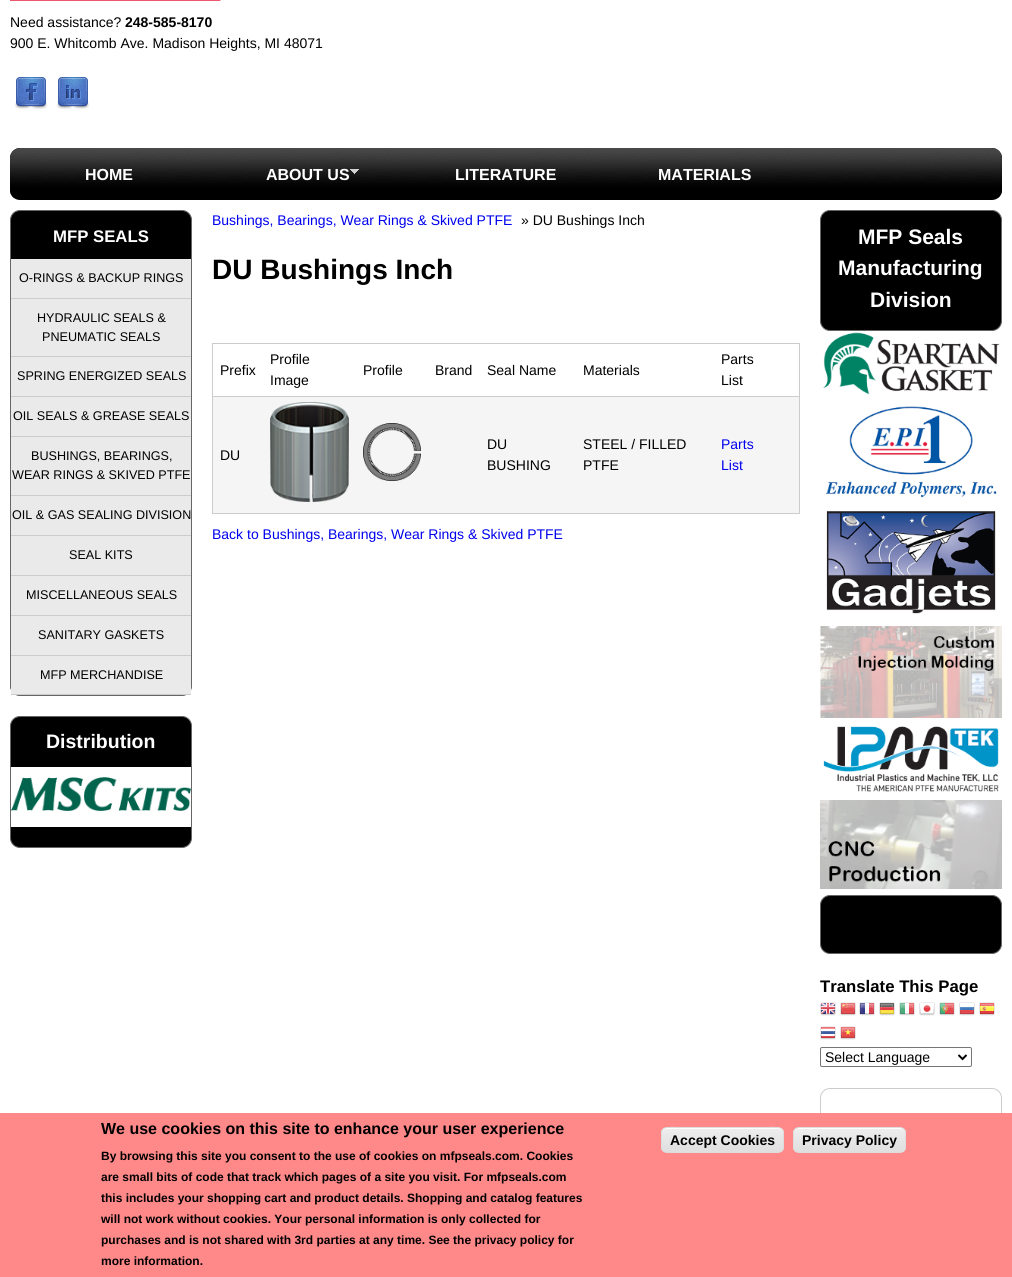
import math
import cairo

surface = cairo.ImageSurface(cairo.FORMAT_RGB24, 1012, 1277)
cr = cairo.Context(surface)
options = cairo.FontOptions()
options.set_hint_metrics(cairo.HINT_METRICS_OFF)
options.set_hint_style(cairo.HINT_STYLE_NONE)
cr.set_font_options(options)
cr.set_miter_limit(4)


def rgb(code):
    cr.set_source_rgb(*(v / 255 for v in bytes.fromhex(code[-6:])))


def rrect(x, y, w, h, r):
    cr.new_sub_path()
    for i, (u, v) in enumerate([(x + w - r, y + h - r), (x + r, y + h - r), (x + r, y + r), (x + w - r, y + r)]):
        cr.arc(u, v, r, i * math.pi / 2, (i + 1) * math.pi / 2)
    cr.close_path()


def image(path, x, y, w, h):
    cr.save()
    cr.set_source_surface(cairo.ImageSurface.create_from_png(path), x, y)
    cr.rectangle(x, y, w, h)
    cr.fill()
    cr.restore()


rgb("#ffffff")
cr.paint()
image("img/1.png", 10, 0, 211, 1)
image("img/2.png", 15, 77, 32, 32)
image("img/3.png", 57, 77, 32, 32)
rgb("#000000")
rrect(10, 148, 992, 52, 10)
cr.fill()
image("img/4.png", 10, 148, 992, 50)
image("img/5.png", 350, 169, 9, 5)
rrect(10.5, 210.5, 181, 485, 9.5)
cr.fill_preserve()
rgb("#666666")
cr.set_line_width(1)
cr.stroke()
for x, y, w, h, color in [
    (11, 259, 180, 39, "#eaeaea"),
    (11, 298, 180, 1, "#cccccc"),
    (11, 299, 180, 57, "#eaeaea"),
    (11, 356, 180, 1, "#cccccc"),
    (11, 357, 180, 39, "#eaeaea"),
    (11, 396, 180, 1, "#cccccc"),
    (11, 397, 180, 39, "#eaeaea"),
    (11, 436, 180, 1, "#cccccc"),
    (11, 437, 180, 58, "#eaeaea"),
    (11, 495, 180, 1, "#cccccc"),
    (11, 496, 180, 39, "#eaeaea"),
    (11, 535, 180, 1, "#cccccc"),
    (11, 536, 180, 39, "#eaeaea"),
    (11, 575, 180, 1, "#cccccc"),
    (11, 576, 180, 39, "#eaeaea"),
    (11, 615, 180, 1, "#cccccc"),
    (11, 616, 180, 39, "#eaeaea"),
    (11, 655, 180, 1, "#cccccc"),
    (11, 656, 180, 38, "#eaeaea"),
    (11, 694, 180, 1, "#cccccc"),
]:
    rgb(color)
    cr.rectangle(x, y, w, h)
    cr.fill()
rgb("#000000")
rrect(10.5, 716.5, 181, 131, 9.5)
cr.fill_preserve()
rgb("#666666")
cr.stroke()
rgb("#ffffff")
cr.rectangle(11, 767, 180, 60)
cr.fill()
image("img/6.png", 11, 777, 180, 34)
for x, y, w, h, color in [
    (212, 343, 588, 1, "#cccccc"),
    (799, 343, 1, 171, "#cccccc"),
    (212, 513, 588, 1, "#cccccc"),
    (212, 343, 1, 171, "#cccccc"),
    (213, 397, 586, 116, "#f5f5f5"),
    (212, 396, 588, 1, "#cccccc"),
]:
    rgb(color)
    cr.rectangle(x, y, w, h)
    cr.fill()
image("img/7.png", 270, 402, 79, 100)
image("img/8.png", 363, 423, 58, 58)
rgb("#000000")
rrect(820.5, 210.5, 181, 120, 9.5)
cr.fill_preserve()
rgb("#666666")
cr.stroke()
image("img/9.png", 823, 332, 177, 63)
image("img/10.png", 825, 406, 172, 92)
image("img/11.png", 826, 511, 170, 103)
image("img/12.png", 820, 626, 182, 92)
image("img/13.png", 823, 726, 176, 66)
image("img/14.png", 820, 800, 182, 89)
rgb("#000000")
rrect(820.5, 895.5, 181, 58, 9.5)
cr.fill_preserve()
rgb("#666666")
cr.stroke()
image("img/15.png", 820, 1002, 16, 14)
image("img/16.png", 840, 1002, 16, 14)
image("img/17.png", 859, 1002, 16, 14)
image("img/18.png", 879, 1002, 16, 14)
image("img/19.png", 899, 1002, 16, 14)
image("img/20.png", 919, 1002, 16, 14)
image("img/21.png", 939, 1002, 16, 14)
image("img/22.png", 959, 1002, 16, 14)
image("img/23.png", 979, 1002, 16, 14)
image("img/24.png", 820, 1026, 16, 14)
image("img/25.png", 840, 1026, 16, 14)
rrect(820.5, 1047.5, 151, 19, 1.5)
rgb("#767676")
cr.stroke()
cr.new_path()
cr.move_to(958.5, 1055)
cr.line_to(962.5, 1059)
cr.line_to(966.5, 1055)
rgb("#000000")
cr.set_line_width(2)
cr.stroke()
rrect(820.5, 1088.5, 181, 52, 9.5)
rgb("#cccccc")
cr.set_line_width(1)
cr.stroke()
rgb("#ff8888")
cr.rectangle(0, 1113, 1012, 164)
cr.fill()
cr.save()
rrect(661, 1127, 123, 26, 6)
cr.clip()
gradient = cairo.LinearGradient(723, 1128, 723, 1152)
gradient.add_color_stop_rgba(0.05, 0.929, 0.929, 0.929, 1)
gradient.add_color_stop_rgba(1, 0.875, 0.875, 0.875, 1)
cr.set_source(gradient)
cr.rectangle(661, 1128, 123, 24)
cr.fill()
cr.restore()
rgb("#ffffff")
cr.new_path()
cr.move_to(667, 1129)
cr.line_to(778, 1129)
cr.curve_to(781, 1129, 783, 1131, 783, 1134)
cr.curve_to(783, 1123, 764, 1128, 760, 1128)
cr.line_to(686, 1128)
cr.curve_to(681, 1128, 662, 1123, 662, 1134)
cr.curve_to(662, 1131, 664, 1129, 667, 1129)
cr.close_path()
cr.fill()
rrect(661.5, 1127.5, 122, 25, 5.5)
rgb("#dcdcdc")
cr.stroke()
cr.save()
rrect(793, 1127, 113, 26, 6)
cr.clip()
gradient = cairo.LinearGradient(850, 1128, 850, 1152)
gradient.add_color_stop_rgba(0.05, 0.929, 0.929, 0.929, 1)
gradient.add_color_stop_rgba(1, 0.875, 0.875, 0.875, 1)
cr.set_source(gradient)
cr.rectangle(793, 1128, 113, 24)
cr.fill()
cr.restore()
rgb("#ffffff")
cr.new_path()
cr.move_to(799, 1129)
cr.line_to(900, 1129)
cr.curve_to(903, 1129, 905, 1131, 905, 1134)
cr.curve_to(905, 1124, 888, 1128, 883, 1128)
cr.line_to(816, 1128)
cr.curve_to(811, 1128, 794, 1124, 794, 1134)
cr.curve_to(794, 1131, 796, 1129, 799, 1129)
cr.close_path()
cr.fill()
rrect(793.5, 1127.5, 112, 25, 5.5)
rgb("#dcdcdc")
cr.stroke()
cr.select_font_face("Liberation Sans")
cr.set_font_size(14)
rgb("#000000")
cr.move_to(10, 27)
cr.show_text("Need assistance?")
cr.select_font_face("Liberation Sans", cairo.FONT_SLANT_NORMAL, cairo.FONT_WEIGHT_BOLD)
cr.move_to(125, 27)
cr.show_text("248-585-8170")
cr.select_font_face("Liberation Sans")
cr.move_to(10, 48)
cr.show_text("900 E. Whitcomb Ave. Madison Heights, MI 48071")
cr.select_font_face("Liberation Sans", cairo.FONT_SLANT_NORMAL, cairo.FONT_WEIGHT_BOLD)
cr.set_font_size(16)
rgb("#ffffff")
for x, y, s in [
    (85, 180, "HOME"),
    (266, 180, "ABOUT US"),
    (455, 180, "LITERATURE"),
    (658, 180, "MATERIALS"),
]:
    cr.move_to(x, y)
    cr.show_text(s)
cr.set_font_size(16.75)
cr.move_to(53, 242)
cr.show_text("MFP SEALS")
cr.select_font_face("Liberation Sans")
cr.set_font_size(12.6)
rgb("#000000")
for x, y, s in [
    (19, 282, "O-RINGS & BACKUP RINGS"),
    (37, 322, "HYDRAULIC SEALS &"),
    (42, 341, "PNEUMATIC SEALS"),
    (17, 380, "SPRING ENERGIZED SEALS"),
    (13, 420, "OIL SEALS & GREASE SEALS"),
    (31, 460, "BUSHINGS, BEARINGS,"),
    (12, 479, "WEAR RINGS & SKIVED PTFE"),
    (12, 519, "OIL & GAS SEALING DIVISION"),
    (69, 559, "SEAL KITS"),
    (26, 599, "MISCELLANEOUS SEALS"),
    (38, 639, "SANITARY GASKETS"),
    (40, 679, "MFP MERCHANDISE"),
]:
    cr.move_to(x, y)
    cr.show_text(s)
cr.select_font_face("Liberation Sans", cairo.FONT_SLANT_NORMAL, cairo.FONT_WEIGHT_BOLD)
cr.set_font_size(19.5)
rgb("#ffffff")
cr.move_to(46, 748)
cr.show_text("Distribution")
cr.select_font_face("Liberation Sans")
cr.set_font_size(14)
rgb("#0000ee")
cr.move_to(212, 225)
cr.show_text("Bushings, Bearings, Wear Rings & Skived PTFE")
rgb("#000000")
cr.move_to(521, 225)
cr.show_text("» DU Bushings Inch")
cr.select_font_face("Liberation Sans", cairo.FONT_SLANT_NORMAL, cairo.FONT_WEIGHT_BOLD)
cr.set_font_size(28)
cr.move_to(212, 279)
cr.show_text("DU Bushings Inch")
cr.select_font_face("Liberation Sans")
cr.set_font_size(14)
for x, y, s in [
    (220, 375, "Prefix"),
    (270, 364, "Profile"),
    (270, 385, "Image"),
    (363, 375, "Profile"),
    (435, 375, "Brand"),
    (487, 375, "Seal Name"),
    (583, 375, "Materials"),
    (721, 364, "Parts"),
    (721, 385, "List"),
    (220, 460, "DU"),
    (487, 449, "DU"),
    (487, 470, "BUSHING"),
    (583, 449, "STEEL / FILLED"),
    (583, 470, "PTFE"),
]:
    cr.move_to(x, y)
    cr.show_text(s)
rgb("#0000ee")
for x, y, s in [
    (721, 449, "Parts"),
    (721, 470, "List"),
    (212, 539, "Back to Bushings, Bearings, Wear Rings & Skived PTFE"),
]:
    cr.move_to(x, y)
    cr.show_text(s)
cr.select_font_face("Liberation Sans", cairo.FONT_SLANT_NORMAL, cairo.FONT_WEIGHT_BOLD)
cr.set_font_size(21)
rgb("#ffffff")
for x, y, s in [
    (858, 244, "MFP Seals"),
    (838, 275, "Manufacturing"),
    (870, 307, "Division"),
]:
    cr.move_to(x, y)
    cr.show_text(s)
cr.set_font_size(16.75)
rgb("#000000")
cr.move_to(820, 992)
cr.show_text("Translate This Page")
cr.select_font_face("Liberation Sans")
cr.set_font_size(14)
cr.move_to(825, 1062)
cr.show_text("Select Language")
cr.select_font_face("Liberation Sans", cairo.FONT_SLANT_NORMAL, cairo.FONT_WEIGHT_BOLD)
cr.set_font_size(16)
cr.move_to(101, 1134)
cr.show_text("We use cookies on this site to enhance your user experience")
cr.set_font_size(12)
for x, y, s in [
    (101, 1160, "By browsing this site you consent to the use of cookies on mfpseals.com. Cookies"),
    (101, 1181, "are small bits of code that track which pages of a site you visit. For mfpseals.com"),
    (101, 1202, "this includes your shopping cart and product details. Shopping and catalog features"),
    (101, 1223, "will not work without cookies. Your personal information is only collected for"),
    (101, 1244, "purchases and is not shared with 3rd parties at any time. See the privacy policy for"),
    (101, 1265, "more information."),
]:
    cr.move_to(x, y)
    cr.show_text(s)
cr.set_font_size(14)
cr.move_to(670, 1145)
cr.show_text("Accept Cookies")
cr.move_to(802, 1145)
cr.show_text("Privacy Policy")
surface.write_to_png("page.png")
